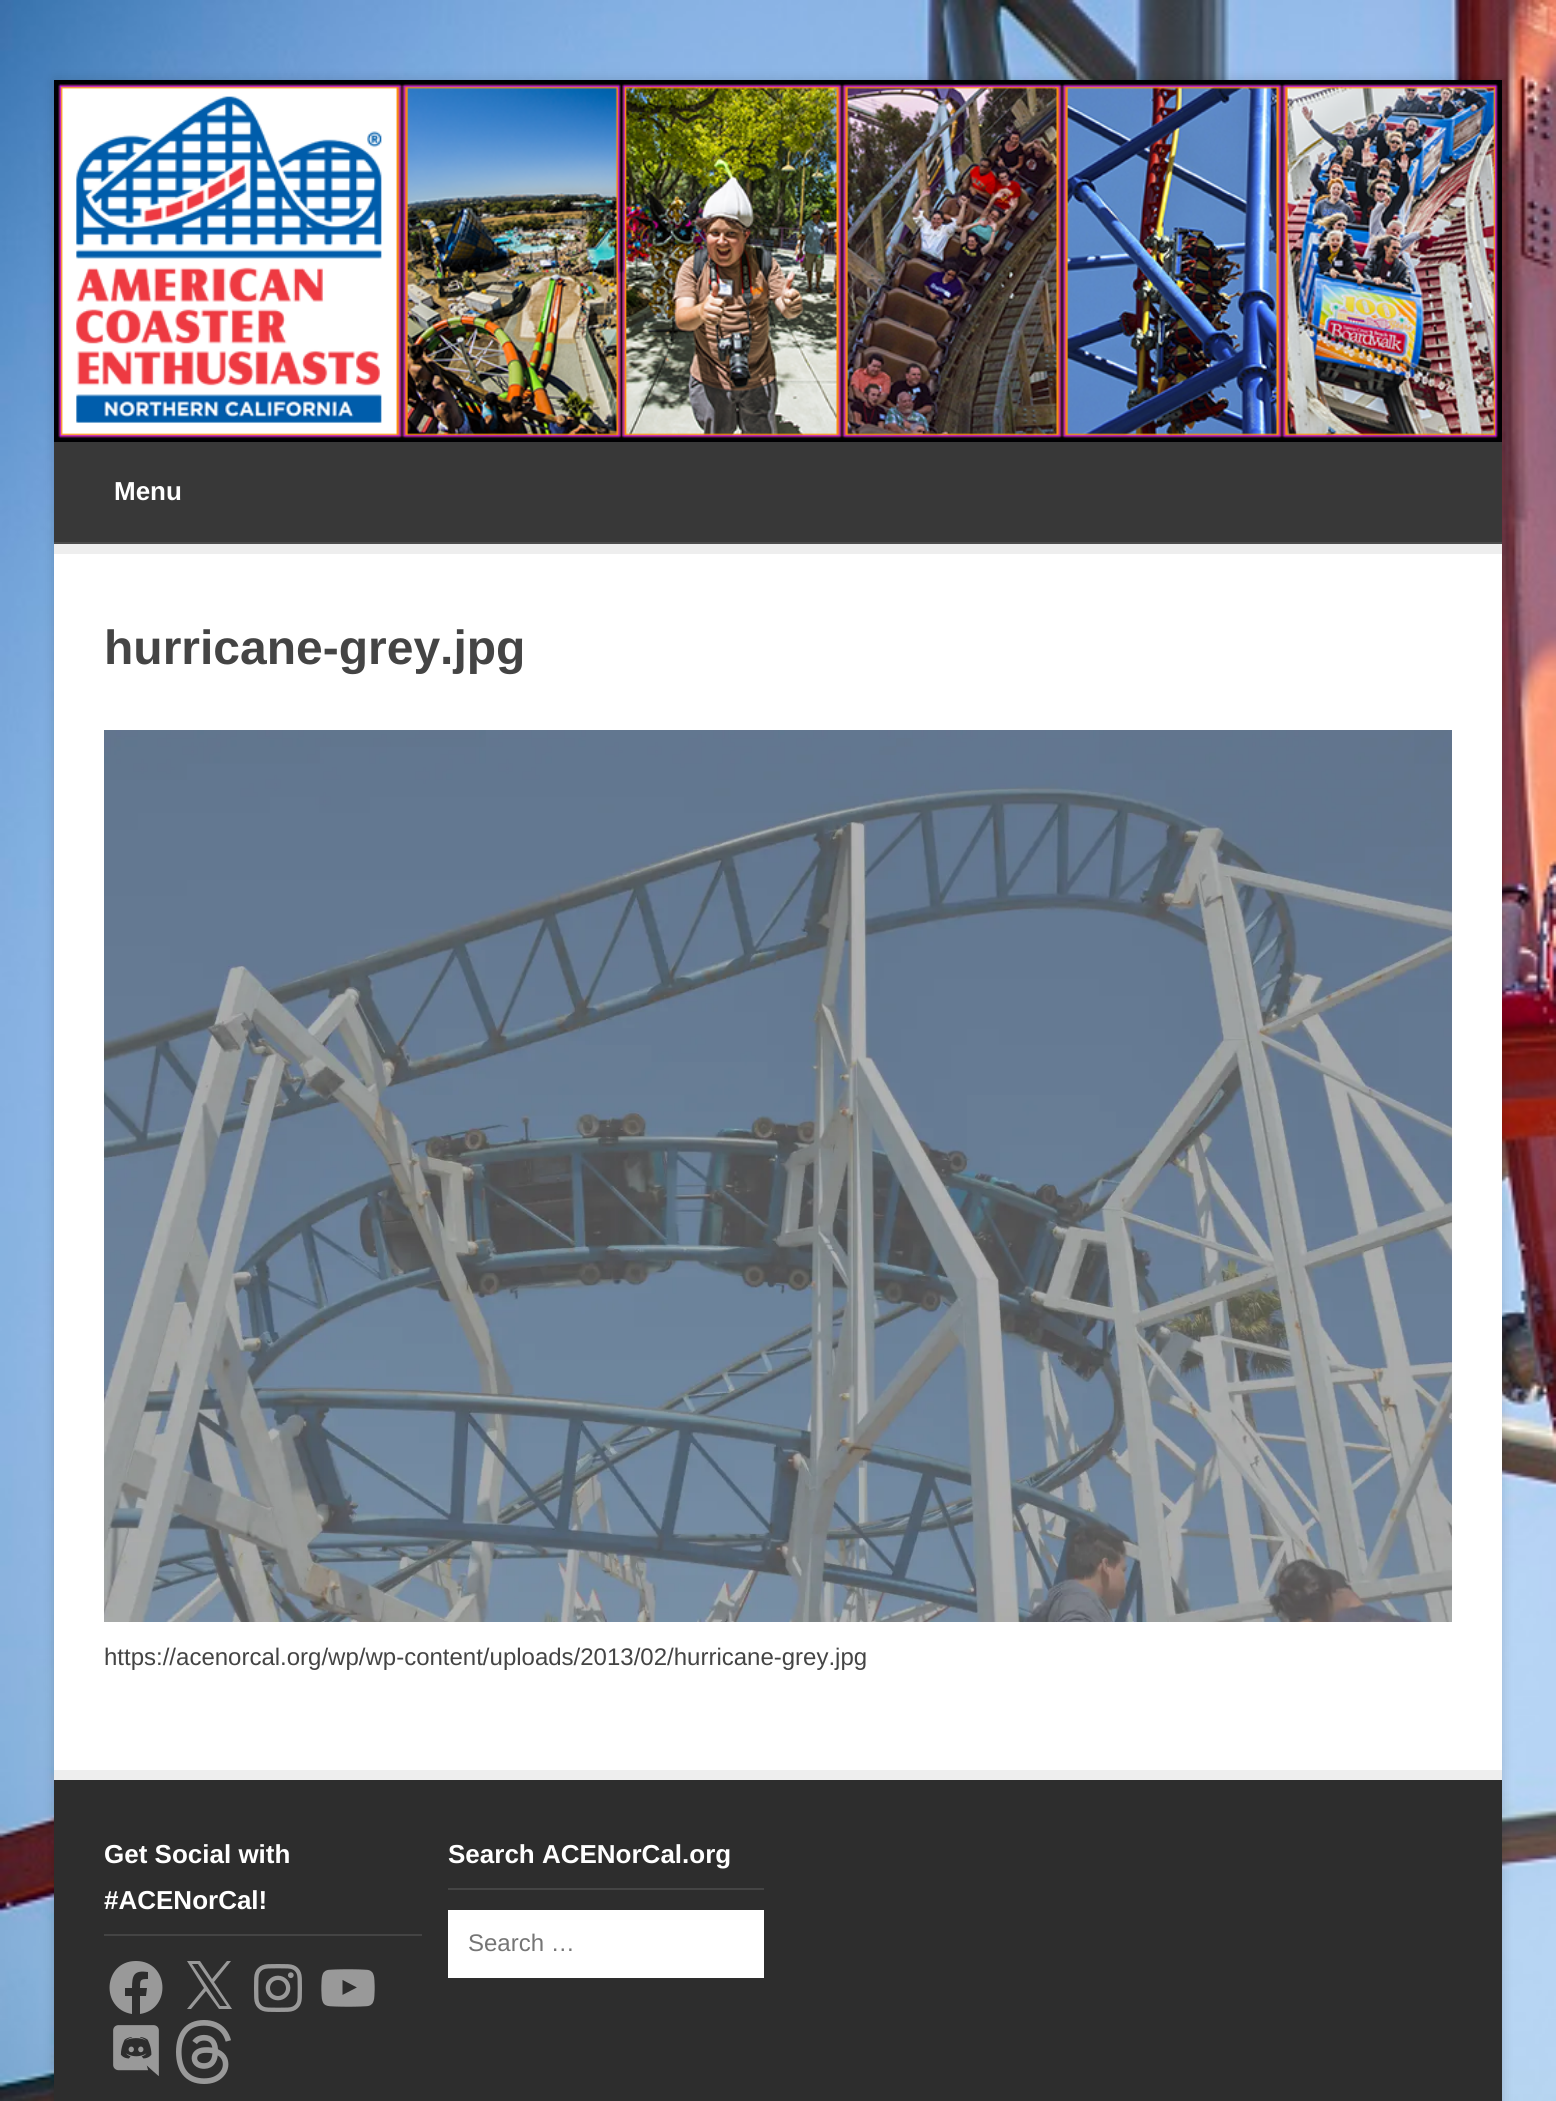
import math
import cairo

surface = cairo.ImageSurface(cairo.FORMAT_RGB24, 1556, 2101)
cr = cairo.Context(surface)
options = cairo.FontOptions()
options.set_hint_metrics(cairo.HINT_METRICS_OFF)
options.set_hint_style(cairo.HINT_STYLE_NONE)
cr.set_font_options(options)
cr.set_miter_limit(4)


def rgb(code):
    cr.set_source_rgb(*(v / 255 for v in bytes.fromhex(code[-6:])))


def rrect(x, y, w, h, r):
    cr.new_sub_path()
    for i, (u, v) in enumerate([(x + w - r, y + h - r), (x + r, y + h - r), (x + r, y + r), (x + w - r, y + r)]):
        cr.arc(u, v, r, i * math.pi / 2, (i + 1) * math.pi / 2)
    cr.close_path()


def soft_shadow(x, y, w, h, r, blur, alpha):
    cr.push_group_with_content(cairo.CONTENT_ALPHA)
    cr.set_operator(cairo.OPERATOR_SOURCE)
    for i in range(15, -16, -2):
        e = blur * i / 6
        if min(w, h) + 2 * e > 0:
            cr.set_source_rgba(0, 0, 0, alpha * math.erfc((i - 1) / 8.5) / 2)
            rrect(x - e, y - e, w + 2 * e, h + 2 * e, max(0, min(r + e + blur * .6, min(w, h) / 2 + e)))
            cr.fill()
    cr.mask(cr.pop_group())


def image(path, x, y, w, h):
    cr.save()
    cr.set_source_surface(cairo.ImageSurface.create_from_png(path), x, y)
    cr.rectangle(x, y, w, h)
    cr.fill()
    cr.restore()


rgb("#ffffff")
cr.paint()
image("img/1.png", 0, 0, 1556, 2101)
rgb("#000000")
soft_shadow(54, 80, 1448, 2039, 0, 6, 0.15)
rgb("#ffffff")
cr.rectangle(54, 554, 1448, 1216)
cr.fill()
image("img/2.png", 54, 80, 1448, 362)
for x, y, w, h, color in [
    (54, 442, 1448, 100, "#383838"),
    (54, 544, 1448, 10, "#eeeeee"),
    (54, 542, 1448, 2, "#4c4c4c"),
]:
    rgb(color)
    cr.rectangle(x, y, w, h)
    cr.fill()
image("img/3.png", 104, 730, 1348, 892)
for x, y, w, h, color in [
    (54, 1780, 1448, 321, "#2d2d2d"),
    (54, 1770, 1448, 10, "#eeeeee"),
    (104, 1934, 318, 2, "#444444"),
]:
    rgb(color)
    cr.rectangle(x, y, w, h)
    cr.fill()
rgb("#999999")
cr.new_path()
cr.move_to(136, 1961)
cr.curve_to(103, 1961, 100, 2009, 132, 2014)
cr.line_to(132, 1996)
cr.line_to(125, 1996)
cr.line_to(125, 1988)
cr.line_to(132, 1988)
cr.curve_to(132, 1975, 134, 1970, 148, 1972)
cr.line_to(148, 1979)
cr.curve_to(140, 1979, 140, 1980, 140, 1988)
cr.line_to(147, 1988)
cr.line_to(146, 1996)
cr.line_to(140, 1996)
cr.line_to(140, 2014)
cr.curve_to(172, 2009, 169, 1961, 136, 1961)
cr.close_path()
cr.fill()
cr.new_path()
cr.move_to(214, 1982)
cr.line_to(231, 1961)
cr.line_to(227, 1961)
cr.line_to(212, 1979)
cr.line_to(200, 1961)
cr.line_to(187, 1961)
cr.line_to(204, 1988)
cr.line_to(187, 2009)
cr.line_to(191, 2009)
cr.line_to(206, 1991)
cr.line_to(219, 2009)
cr.line_to(232, 2009)
cr.close_path()
cr.move_to(208, 1988)
cr.line_to(192, 1964)
cr.line_to(198, 1964)
cr.line_to(227, 2006)
cr.line_to(220, 2006)
cr.close_path()
cr.fill()
image("img/4.png", 254, 1964, 48, 48)
image("img/5.png", 321, 1969, 54, 38)
image("img/6.png", 113, 2025, 46, 51)
image("img/7.png", 176, 2020, 55, 64)
rgb("#444444")
cr.rectangle(448, 1888, 316, 2)
cr.fill()
rgb("#ffffff")
cr.rectangle(448, 1910, 316, 68)
cr.fill()
cr.select_font_face("Liberation Sans", cairo.FONT_SLANT_NORMAL, cairo.FONT_WEIGHT_BOLD)
cr.set_font_size(26)
cr.move_to(114, 500)
cr.show_text("Menu")
cr.set_font_size(48)
rgb("#444444")
cr.move_to(104, 664)
cr.show_text("hurricane-grey.jpg")
cr.select_font_face("Liberation Sans")
cr.set_font_size(24)
cr.move_to(104, 1665)
cr.show_text("https://acenorcal.org/wp/wp-content/uploads/2013/02/hurricane-grey.jpg")
cr.select_font_face("Liberation Sans", cairo.FONT_SLANT_NORMAL, cairo.FONT_WEIGHT_BOLD)
cr.set_font_size(26)
rgb("#ffffff")
for x, y, s in [
    (104, 1863, "Get Social with"),
    (104, 1909, "#ACENorCal!"),
    (448, 1863, "Search ACENorCal.org"),
]:
    cr.move_to(x, y)
    cr.show_text(s)
cr.select_font_face("Liberation Sans")
cr.set_font_size(24)
rgb("#757575")
cr.move_to(468, 1951)
cr.show_text("Search …")
surface.write_to_png("page.png")
